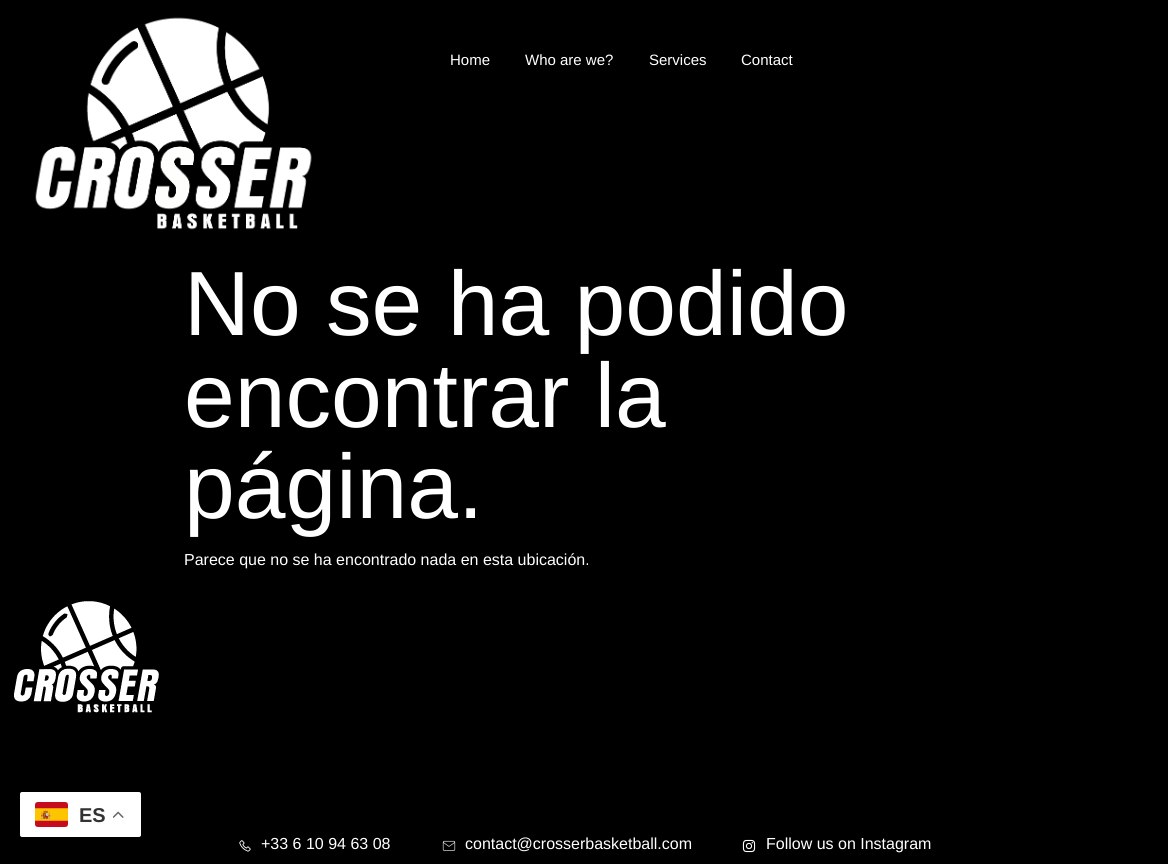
import math
import cairo

surface = cairo.ImageSurface(cairo.FORMAT_RGB24, 1168, 864)
cr = cairo.Context(surface)
options = cairo.FontOptions()
options.set_hint_metrics(cairo.HINT_METRICS_OFF)
options.set_hint_style(cairo.HINT_STYLE_NONE)
cr.set_font_options(options)
cr.set_miter_limit(4)


def rgb(code):
    cr.set_source_rgb(*(v / 255 for v in bytes.fromhex(code[-6:])))


def rrect(x, y, w, h, r):
    cr.new_sub_path()
    for i, (u, v) in enumerate([(x + w - r, y + h - r), (x + r, y + h - r), (x + r, y + r), (x + w - r, y + r)]):
        cr.arc(u, v, r, i * math.pi / 2, (i + 1) * math.pi / 2)
    cr.close_path()


def image(path, x, y, w, h):
    cr.save()
    cr.set_source_surface(cairo.ImageSurface.create_from_png(path), x, y)
    cr.rectangle(x, y, w, h)
    cr.fill()
    cr.restore()


rgb("#000000")
cr.paint()
image("img/1.png", 35, 17, 277, 213)
rgb("#ffffff")
rrect(20, 792, 121, 45, 2)
cr.fill()
image("img/2.png", 35, 802, 33, 25)
image("img/3.png", 113, 811, 11, 7)
image("img/4.png", 14, 601, 145, 112)
image("img/5.png", 239, 840, 12, 12)
image("img/6.png", 442, 840, 14, 11)
image("img/7.png", 742, 839, 14, 14)
cr.select_font_face("Liberation Sans")
cr.set_font_size(15)
for x, y, s in [
    (450, 65, "Home"),
    (525, 65, "Who are we?"),
    (649, 65, "Services"),
    (741, 65, "Contact"),
]:
    cr.move_to(x, y)
    cr.show_text(s)
cr.set_font_size(91.25)
for x, y, s in [
    (184, 335, "No se ha podido"),
    (184, 427, "encontrar la"),
    (184, 518, "página."),
]:
    cr.move_to(x, y)
    cr.show_text(s)
cr.set_font_size(16)
cr.move_to(184, 565)
cr.show_text("Parece que no se ha encontrado nada en esta ubicación.")
cr.select_font_face("Liberation Sans", cairo.FONT_SLANT_NORMAL, cairo.FONT_WEIGHT_BOLD)
cr.set_font_size(20)
rgb("#333333")
cr.move_to(79, 822)
cr.show_text("ES")
cr.select_font_face("Liberation Sans")
cr.set_font_size(16)
rgb("#ffffff")
for x, y, s in [
    (261, 849, "+33 6 10 94 63 08"),
    (465, 849, "contact@crosserbasketball.com"),
    (766, 849, "Follow us on Instagram"),
]:
    cr.move_to(x, y)
    cr.show_text(s)
surface.write_to_png("page.png")
